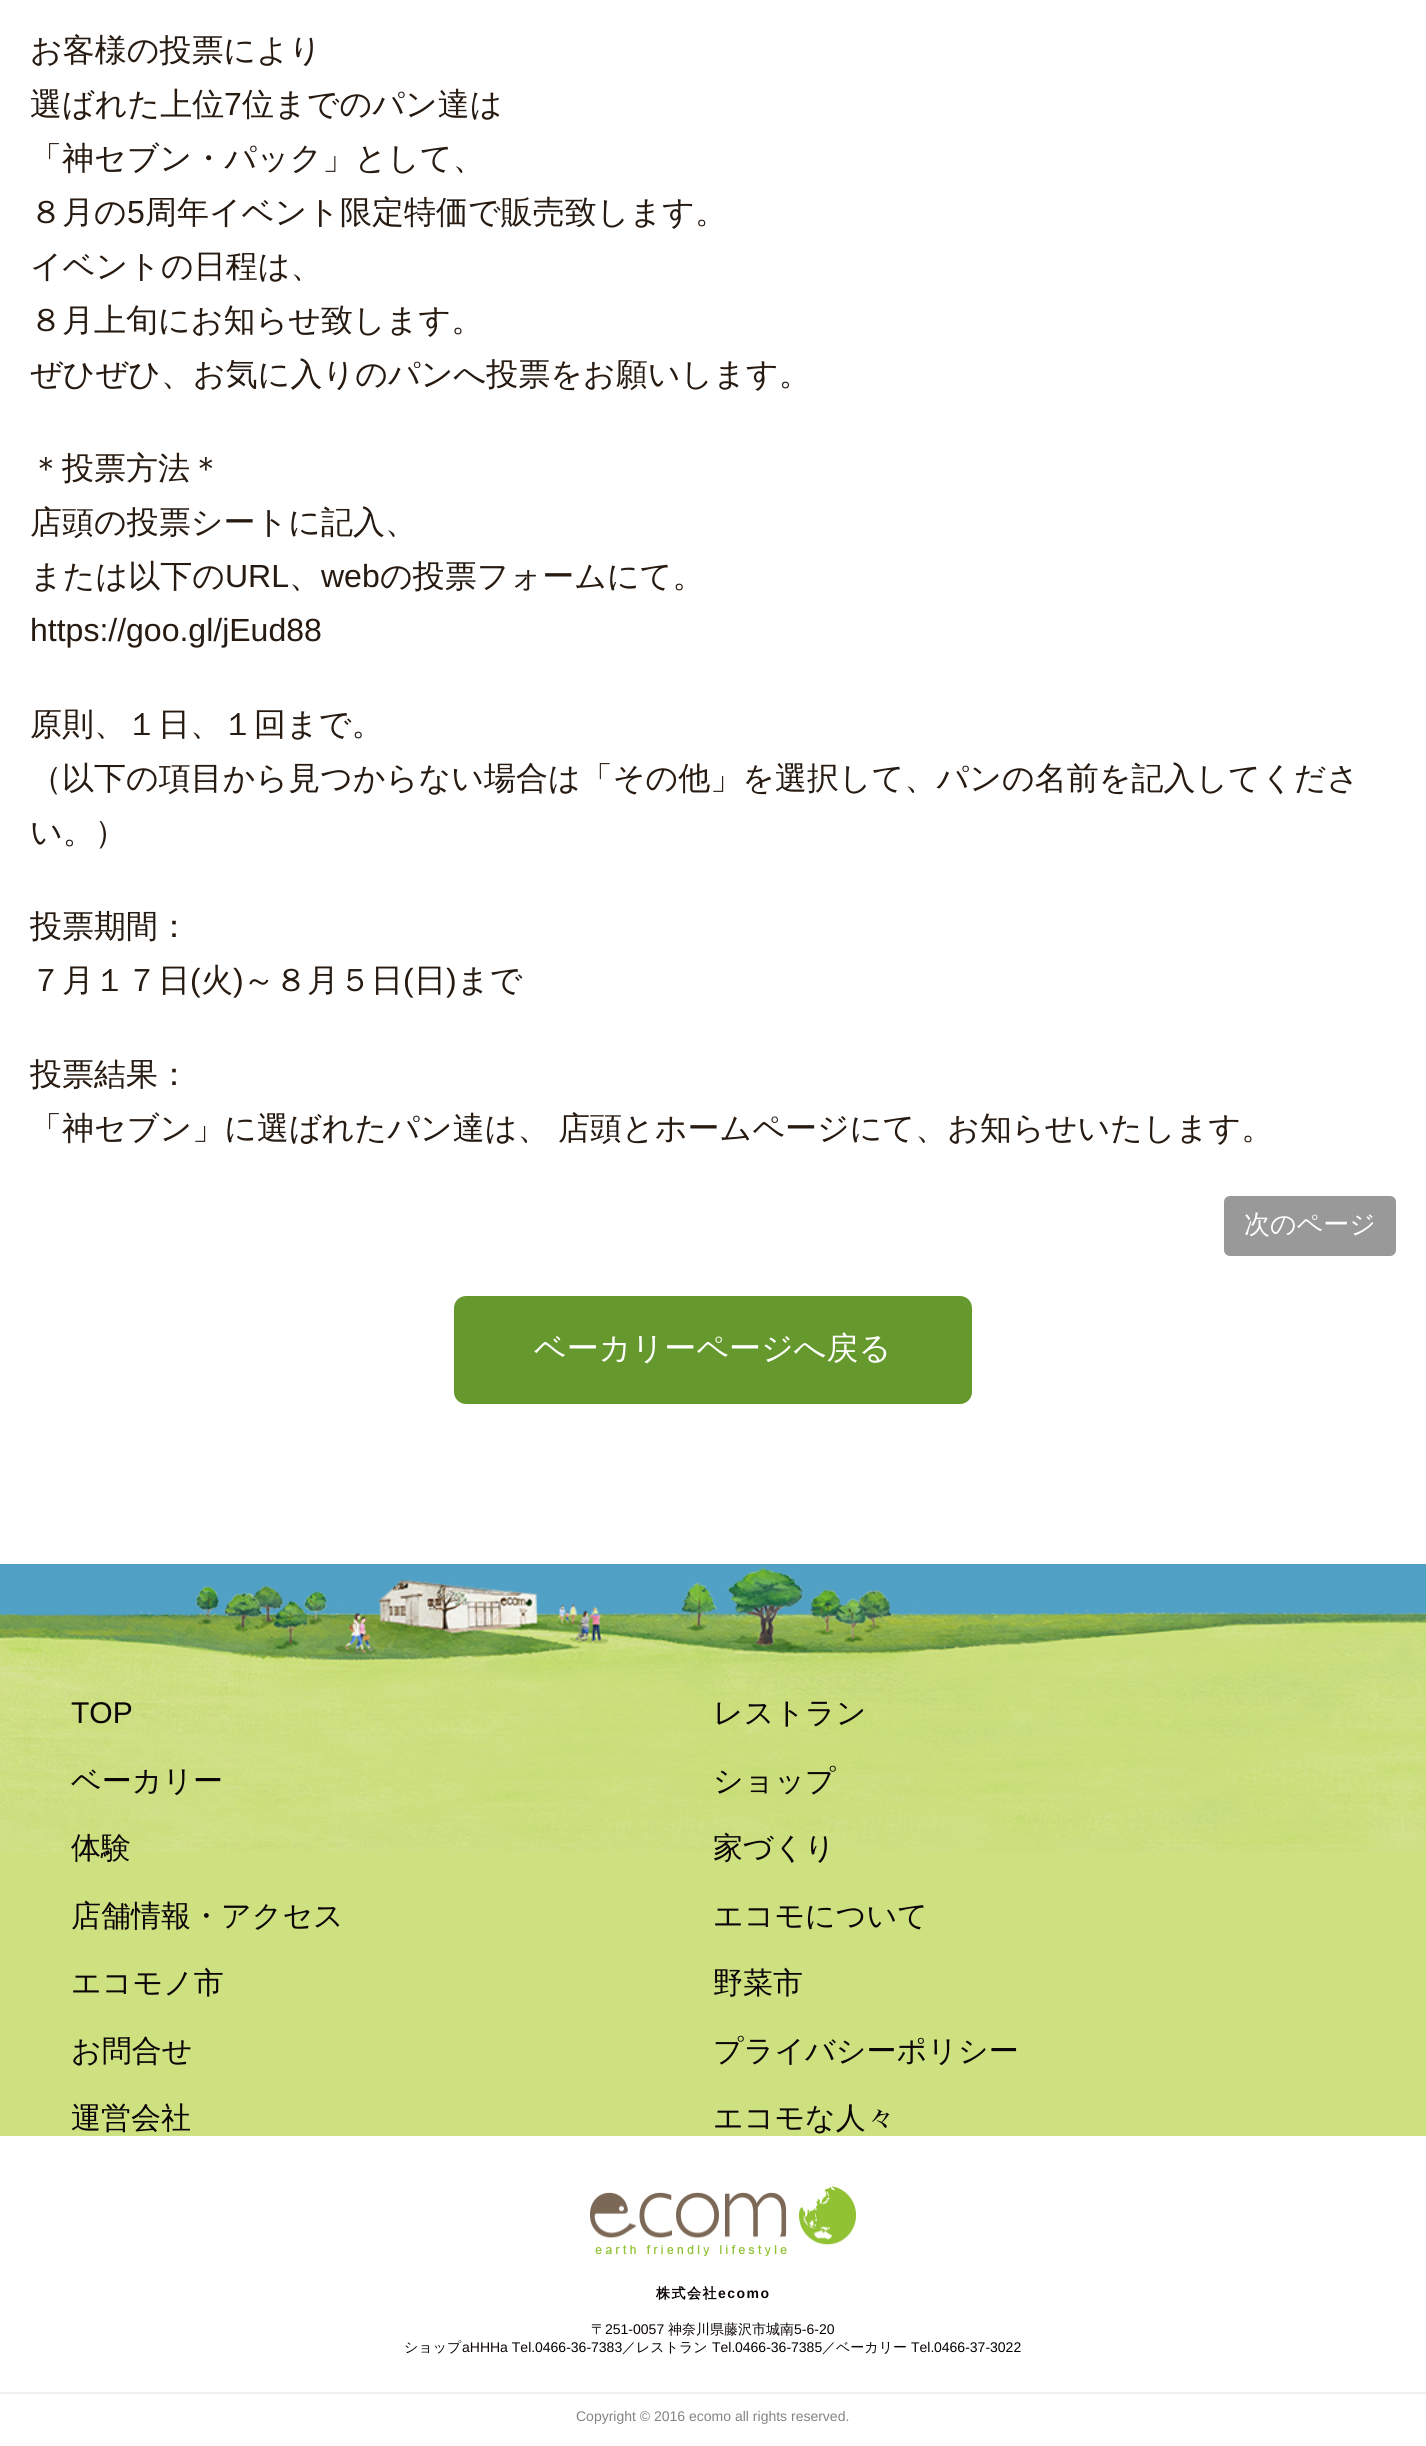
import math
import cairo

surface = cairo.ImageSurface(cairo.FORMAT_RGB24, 1426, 2446)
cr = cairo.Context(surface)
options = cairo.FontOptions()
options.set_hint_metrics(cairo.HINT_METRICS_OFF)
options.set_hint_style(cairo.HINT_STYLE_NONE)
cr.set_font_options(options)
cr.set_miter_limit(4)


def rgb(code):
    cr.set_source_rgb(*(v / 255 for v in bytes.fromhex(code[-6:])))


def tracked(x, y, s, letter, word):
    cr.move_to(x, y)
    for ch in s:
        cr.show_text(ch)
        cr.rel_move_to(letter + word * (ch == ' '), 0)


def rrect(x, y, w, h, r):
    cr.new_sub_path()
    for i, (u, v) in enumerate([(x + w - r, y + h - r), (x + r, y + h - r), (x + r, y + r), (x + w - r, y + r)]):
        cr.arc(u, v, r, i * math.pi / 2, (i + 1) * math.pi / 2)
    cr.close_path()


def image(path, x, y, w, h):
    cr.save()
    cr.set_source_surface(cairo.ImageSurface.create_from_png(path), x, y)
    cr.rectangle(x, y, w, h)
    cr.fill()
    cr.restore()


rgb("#ffffff")
cr.paint()
rgb("#999999")
rrect(1224, 1196, 172, 60, 6)
cr.fill()
rgb("#66992d")
rrect(454, 1296, 518, 108, 12)
cr.fill()
rgb("#cee180")
cr.rectangle(0, 1852, 1426, 284)
cr.fill()
image("img/1.png", 0, 1564, 1426, 288)
rgb("#f0f0f0")
cr.rectangle(0, 2392, 1426, 2)
cr.fill()
image("img/2.png", 590, 2186, 266, 70)
cr.select_font_face("WenQuanYi Zen Hei Medium")
cr.set_font_size(32)
rgb("#261a11")
cr.move_to(30, 61)
cr.show_text("お客様の投票により")
cr.move_to(30, 115)
cr.show_text("選ばれた上位")
cr.select_font_face("Liberation Sans")
cr.move_to(224, 115)
cr.show_text("7")
cr.select_font_face("WenQuanYi Zen Hei Medium")
for x, y, s in [
    (242, 115, "位までのパン達は"),
    (30, 169, "「神セブン・パック」として、"),
    (30, 223, "８月の"),
]:
    cr.move_to(x, y)
    cr.show_text(s)
cr.select_font_face("Liberation Sans")
cr.move_to(127, 223)
cr.show_text("5")
cr.select_font_face("WenQuanYi Zen Hei Medium")
for x, y, s in [
    (145, 223, "周年イベント限定特価で販売致します。"),
    (30, 277, "イベントの日程は、"),
    (30, 331, "８月上旬にお知らせ致します。"),
    (30, 385, "ぜひぜひ、お気に入りのパンへ投票をお願いします。"),
    (30, 479, "＊投票方法＊"),
    (30, 533, "店頭の投票シートに記入、"),
    (30, 587, "または以下の"),
]:
    cr.move_to(x, y)
    cr.show_text(s)
cr.select_font_face("Liberation Sans")
cr.move_to(225, 587)
cr.show_text("URL")
cr.select_font_face("WenQuanYi Zen Hei Medium")
cr.move_to(289, 587)
cr.show_text("、")
cr.select_font_face("Liberation Sans")
cr.move_to(321, 587)
cr.show_text("web")
cr.select_font_face("WenQuanYi Zen Hei Medium")
cr.move_to(380, 587)
cr.show_text("の投票フォームにて。")
cr.select_font_face("Liberation Sans")
cr.move_to(30, 641)
cr.show_text("https://goo.gl/jEud88")
cr.select_font_face("WenQuanYi Zen Hei Medium")
for x, y, s in [
    (30, 735, "原則、１日、１回まで。"),
    (30, 789, "（以下の項目から見つからない場合は「その他」を選択して、パンの名前を記入してくださ"),
    (30, 843, "い。）"),
    (30, 937, "投票期間："),
    (30, 991, "７月１７日"),
]:
    cr.move_to(x, y)
    cr.show_text(s)
cr.select_font_face("Liberation Sans")
cr.move_to(190, 991)
cr.show_text("(")
cr.select_font_face("WenQuanYi Zen Hei Medium")
cr.move_to(201, 991)
cr.show_text("火")
cr.select_font_face("Liberation Sans")
cr.move_to(233, 991)
cr.show_text(")")
cr.select_font_face("WenQuanYi Zen Hei Medium")
cr.move_to(243, 991)
cr.show_text("～８月５日")
cr.select_font_face("Liberation Sans")
cr.move_to(403, 991)
cr.show_text("(")
cr.select_font_face("WenQuanYi Zen Hei Medium")
cr.move_to(414, 991)
cr.show_text("日")
cr.select_font_face("Liberation Sans")
cr.move_to(446, 991)
cr.show_text(")")
cr.select_font_face("WenQuanYi Zen Hei Medium")
cr.move_to(457, 991)
cr.show_text("まで")
cr.move_to(30, 1085)
cr.show_text("投票結果：")
tracked(30, 1139, "「神セブン」に選ばれたパン達は、 店頭とホームページにて、お知らせいたします。", 0, -1)
cr.set_font_size(26)
rgb("#ffffff")
cr.move_to(1244, 1233)
cr.show_text("次のページ")
cr.set_font_size(32)
cr.move_to(534, 1359)
cr.show_text("ベーカリーページへ戻る")
cr.select_font_face("Liberation Sans")
cr.set_font_size(30)
rgb("#0c0508")
cr.move_to(71, 1723)
cr.show_text("TOP")
cr.select_font_face("WenQuanYi Zen Hei Medium")
for x, y, s in [
    (713, 1723, "レストラン"),
    (71, 1791, "ベーカリー"),
    (713, 1791, "ショップ"),
    (71, 1858, "体験"),
    (713, 1858, "家づくり"),
    (71, 1926, "店舗情報・アクセス"),
    (713, 1926, "エコモについて"),
    (71, 1993, "エコモノ市"),
    (713, 1993, "野菜市"),
    (71, 2061, "お問合せ"),
    (713, 2061, "プライバシーポリシー"),
    (71, 2128, "運営会社"),
    (713, 2128, "エコモな人々"),
]:
    cr.move_to(x, y)
    cr.show_text(s)
cr.select_font_face("WenQuanYi Zen Hei", cairo.FONT_SLANT_NORMAL, cairo.FONT_WEIGHT_BOLD)
cr.set_font_size(14)
tracked(656, 2298, "株式会社", 1.5, 0)
cr.select_font_face("Liberation Sans", cairo.FONT_SLANT_NORMAL, cairo.FONT_WEIGHT_BOLD)
tracked(718, 2298, "ecomo", 1.5, 0)
cr.select_font_face("WenQuanYi Zen Hei Medium")
cr.move_to(591, 2334)
cr.show_text("〒")
cr.select_font_face("Liberation Sans")
cr.move_to(605, 2334)
cr.show_text("251-0057")
cr.select_font_face("WenQuanYi Zen Hei Medium")
cr.move_to(668, 2334)
cr.show_text("神奈川県藤沢市城南")
cr.select_font_face("Liberation Sans")
cr.move_to(794, 2334)
cr.show_text("5-6-20")
cr.select_font_face("WenQuanYi Zen Hei Medium")
cr.move_to(404, 2352)
cr.show_text("ショップ")
cr.select_font_face("Liberation Sans")
cr.move_to(462, 2352)
cr.show_text("aHHHa Tel.")
rgb("#000000")
cr.move_to(535, 2352)
cr.show_text("0466-36-7383")
cr.select_font_face("WenQuanYi Zen Hei Medium")
rgb("#0c0508")
cr.move_to(622, 2352)
cr.show_text("／レストラン")
cr.select_font_face("Liberation Sans")
cr.move_to(712, 2352)
cr.show_text("Tel.")
rgb("#000000")
cr.move_to(735, 2352)
cr.show_text("0466-36-7385")
cr.select_font_face("WenQuanYi Zen Hei Medium")
rgb("#0c0508")
cr.move_to(822, 2352)
cr.show_text("／ベーカリー")
cr.select_font_face("Liberation Sans")
cr.move_to(911, 2352)
cr.show_text("Tel.")
rgb("#000000")
cr.move_to(934, 2352)
cr.show_text("0466-37-3022")
rgb("#858283")
cr.move_to(576, 2421)
cr.show_text("Copyright © 2016 ecomo all rights reserved.")
surface.write_to_png("page.png")
